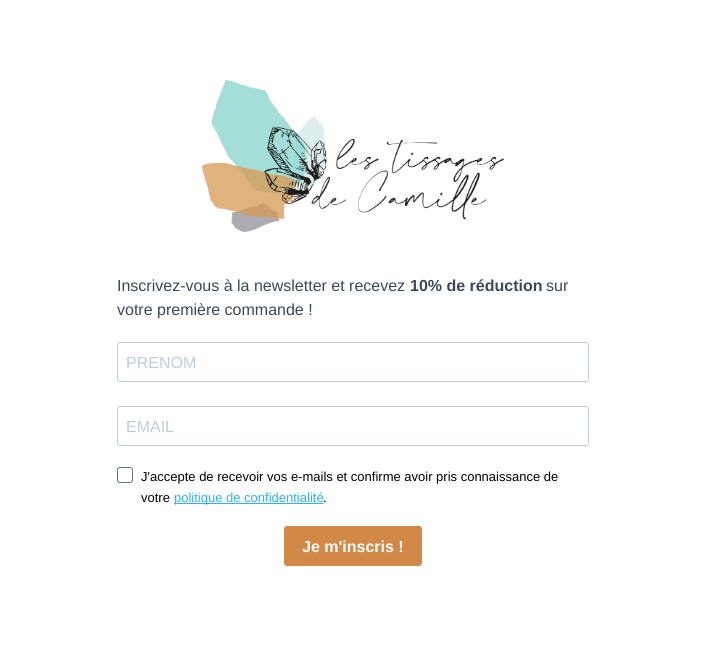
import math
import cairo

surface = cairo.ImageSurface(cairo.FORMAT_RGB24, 706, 648)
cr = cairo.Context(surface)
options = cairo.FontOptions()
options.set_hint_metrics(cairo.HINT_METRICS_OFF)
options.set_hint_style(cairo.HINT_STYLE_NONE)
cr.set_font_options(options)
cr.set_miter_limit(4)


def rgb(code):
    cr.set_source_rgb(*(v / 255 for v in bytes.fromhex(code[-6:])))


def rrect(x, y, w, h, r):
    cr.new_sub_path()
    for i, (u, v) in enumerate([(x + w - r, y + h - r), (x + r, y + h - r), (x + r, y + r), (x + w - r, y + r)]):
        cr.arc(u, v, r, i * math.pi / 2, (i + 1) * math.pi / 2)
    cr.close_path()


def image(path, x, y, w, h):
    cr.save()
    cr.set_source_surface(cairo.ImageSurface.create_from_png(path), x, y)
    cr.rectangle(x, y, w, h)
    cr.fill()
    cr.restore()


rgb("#ffffff")
cr.paint()
image("img/1.png", 202, 79, 302, 154)
rrect(117.5, 342.5, 471, 39, 2.5)
rgb("#c0ccda")
cr.set_line_width(1)
cr.stroke()
rrect(117.5, 406.5, 471, 39, 2.5)
cr.stroke()
rrect(117.5, 467.5, 15, 15, 2.5)
rgb("#687484")
cr.stroke()
rgb("#2bb2fc")
cr.rectangle(174, 503, 149, 1)
cr.fill()
rgb("#d28846")
rrect(284, 526, 138, 40, 3)
cr.fill()
cr.select_font_face("Liberation Sans")
cr.set_font_size(16)
rgb("#3c4858")
cr.move_to(117, 291)
cr.show_text("Inscrivez-vous à la newsletter et recevez")
cr.select_font_face("Liberation Sans", cairo.FONT_SLANT_NORMAL, cairo.FONT_WEIGHT_BOLD)
cr.move_to(410, 291)
cr.show_text("10% de réduction")
cr.select_font_face("Liberation Sans")
cr.move_to(546, 291)
cr.show_text("sur")
cr.move_to(117, 315)
cr.show_text("votre première commande !")
rgb("#c0ccda")
cr.move_to(126, 368)
cr.show_text("PRENOM")
cr.move_to(126, 432)
cr.show_text("EMAIL")
cr.set_font_size(13)
rgb("#000000")
cr.move_to(141, 481)
cr.show_text("J'accepte de recevoir vos e-mails et confirme avoir pris connaissance de")
cr.move_to(141, 502)
cr.show_text("votre")
rgb("#2bb2fc")
cr.move_to(174, 502)
cr.show_text("politique de confidentialité")
rgb("#000000")
cr.move_to(323, 502)
cr.show_text(".")
cr.select_font_face("Liberation Sans", cairo.FONT_SLANT_NORMAL, cairo.FONT_WEIGHT_BOLD)
cr.set_font_size(16)
rgb("#ffffff")
cr.move_to(302, 552)
cr.show_text("Je m'inscris !")
surface.write_to_png("page.png")
